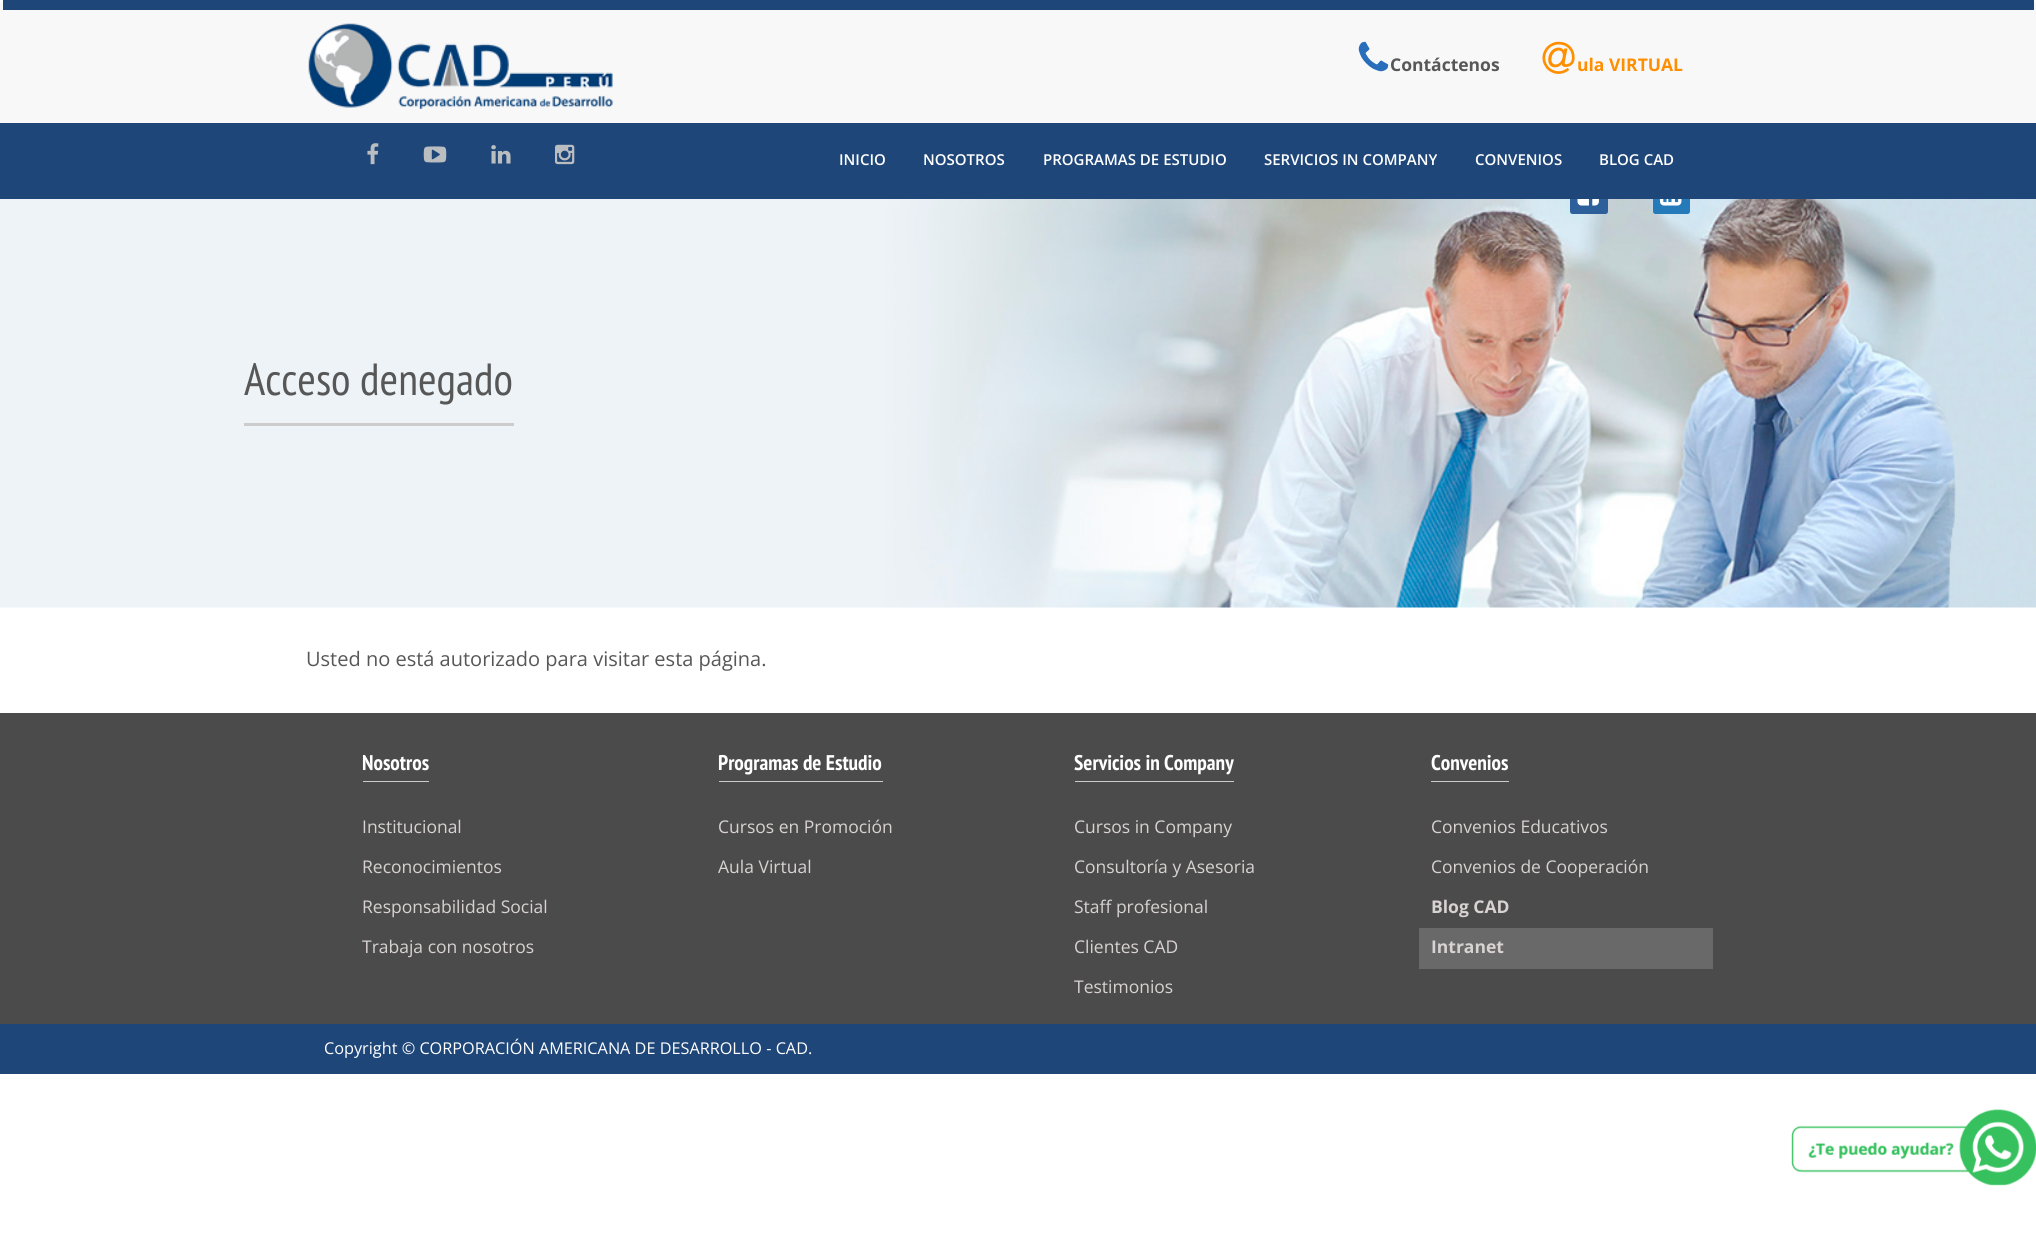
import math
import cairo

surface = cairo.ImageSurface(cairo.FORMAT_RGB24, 2036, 1252)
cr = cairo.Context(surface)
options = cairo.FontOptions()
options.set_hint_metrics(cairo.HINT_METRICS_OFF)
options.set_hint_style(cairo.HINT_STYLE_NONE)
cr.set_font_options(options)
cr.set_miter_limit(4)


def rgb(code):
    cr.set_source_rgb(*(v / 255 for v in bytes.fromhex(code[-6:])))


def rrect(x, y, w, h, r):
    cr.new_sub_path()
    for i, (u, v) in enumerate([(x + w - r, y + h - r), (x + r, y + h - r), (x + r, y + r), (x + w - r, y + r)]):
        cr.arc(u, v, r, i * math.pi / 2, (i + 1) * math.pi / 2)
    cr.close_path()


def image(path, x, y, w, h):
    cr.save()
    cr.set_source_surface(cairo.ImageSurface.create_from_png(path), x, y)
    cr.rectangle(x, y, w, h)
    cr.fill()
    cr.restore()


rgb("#ffffff")
cr.paint()
image("img/8.png", 0, 199, 2036, 409)
rgb("#2d609b")
rrect(1570, 176, 38, 38, 2.5)
cr.fill()
rgb("#257bba")
rrect(1653, 176, 37, 38, 2.5)
cr.fill()
rgb("#f8f8f8")
rrect(0, 0, 2036, 199, 5)
cr.fill()
rgb("#1e4679")
cr.rectangle(3, 0, 2031, 10)
cr.fill()
image("img/1.png", 308, 23, 305, 86)
image("img/2.png", 1358, 41, 31, 31)
image("img/3.png", 1542, 41, 33, 33)
cr.rectangle(0, 123, 2036, 76)
cr.fill()
image("img/4.png", 367, 143, 12, 22)
image("img/5.png", 423, 146, 24, 17)
image("img/6.png", 491, 145, 20, 19)
image("img/7.png", 555, 144, 20, 21)
image("img/9.png", 1577, 199, 22, 7)
image("img/10.png", 1660, 199, 22, 7)
for x, y, w, h, color in [
    (244, 423, 270, 3, "#cccccc"),
    (0, 713, 2036, 311, "#4c4b4b"),
    (363, 781, 66, 1, "#cccccc"),
    (719, 781, 164, 1, "#cccccc"),
    (1075, 781, 159, 1, "#cccccc"),
    (1431, 781, 78, 1, "#cccccc"),
    (1419, 928, 294, 41, "#696969"),
    (0, 1024, 2036, 50, "#1e4679"),
]:
    rgb(color)
    cr.rectangle(x, y, w, h)
    cr.fill()
image("img/11.png", 1791, 1109, 245, 77)
cr.select_font_face("Open Sans", cairo.FONT_SLANT_NORMAL, cairo.FONT_WEIGHT_BOLD)
cr.set_font_size(17.5)
rgb("#575757")
cr.move_to(1390, 71)
cr.show_text("Contáctenos")
rgb("#ff8f00")
cr.move_to(1577, 71)
cr.show_text("ula VIRTUAL")
cr.select_font_face("Open Sans SemiBold")
cr.set_font_size(15)
rgb("#ffffff")
for x, y, s in [
    (839, 165, "INICIO"),
    (923, 165, "NOSOTROS"),
    (1043, 165, "PROGRAMAS DE ESTUDIO"),
    (1264, 165, "SERVICIOS IN COMPANY"),
    (1475, 165, "CONVENIOS"),
    (1599, 165, "BLOG CAD"),
]:
    cr.move_to(x, y)
    cr.show_text(s)
cr.select_font_face("PT Sans Narrow")
cr.set_font_size(45)
rgb("#575757")
cr.move_to(244, 395)
cr.show_text("Acceso denegado")
cr.select_font_face("Open Sans")
cr.set_font_size(20)
cr.move_to(306, 666)
cr.show_text("Usted no está autorizado para visitar esta página.")
cr.select_font_face("PT Sans Narrow", cairo.FONT_SLANT_NORMAL, cairo.FONT_WEIGHT_BOLD)
cr.set_font_size(21.25)
rgb("#ffffff")
cr.move_to(362, 770)
cr.show_text("Nosotros")
cr.select_font_face("Open Sans")
cr.set_font_size(17.5)
rgb("#d8d2d2")
for x, y, s in [
    (362, 833, "Institucional"),
    (362, 873, "Reconocimientos"),
    (362, 913, "Responsabilidad Social"),
    (362, 953, "Trabaja con nosotros"),
]:
    cr.move_to(x, y)
    cr.show_text(s)
cr.select_font_face("PT Sans Narrow", cairo.FONT_SLANT_NORMAL, cairo.FONT_WEIGHT_BOLD)
cr.set_font_size(21.25)
rgb("#ffffff")
cr.move_to(718, 770)
cr.show_text("Programas de Estudio")
cr.select_font_face("Open Sans")
cr.set_font_size(17.5)
rgb("#d8d2d2")
cr.move_to(718, 833)
cr.show_text("Cursos en Promoción")
cr.move_to(718, 873)
cr.show_text("Aula Virtual")
cr.select_font_face("PT Sans Narrow", cairo.FONT_SLANT_NORMAL, cairo.FONT_WEIGHT_BOLD)
cr.set_font_size(21.25)
rgb("#ffffff")
cr.move_to(1074, 770)
cr.show_text("Servicios in Company")
cr.select_font_face("Open Sans")
cr.set_font_size(17.5)
rgb("#d8d2d2")
for x, y, s in [
    (1074, 833, "Cursos in Company"),
    (1074, 873, "Consultoría y Asesoria"),
    (1074, 913, "Staff profesional"),
    (1074, 953, "Clientes CAD"),
    (1074, 993, "Testimonios"),
]:
    cr.move_to(x, y)
    cr.show_text(s)
cr.select_font_face("PT Sans Narrow", cairo.FONT_SLANT_NORMAL, cairo.FONT_WEIGHT_BOLD)
cr.set_font_size(21.25)
rgb("#ffffff")
cr.move_to(1431, 770)
cr.show_text("Convenios")
cr.select_font_face("Open Sans")
cr.set_font_size(17.5)
rgb("#d8d2d2")
cr.move_to(1431, 833)
cr.show_text("Convenios Educativos")
cr.move_to(1431, 873)
cr.show_text("Convenios de Cooperación")
cr.select_font_face("Open Sans", cairo.FONT_SLANT_NORMAL, cairo.FONT_WEIGHT_BOLD)
cr.move_to(1431, 913)
cr.show_text("Blog CAD")
cr.move_to(1431, 953)
cr.show_text("Intranet")
cr.select_font_face("Open Sans")
cr.set_font_size(16.25)
rgb("#ffffff")
cr.move_to(324, 1054)
cr.show_text("Copyright © CORPORACIÓN AMERICANA DE DESARROLLO - CAD.")
surface.write_to_png("page.png")
